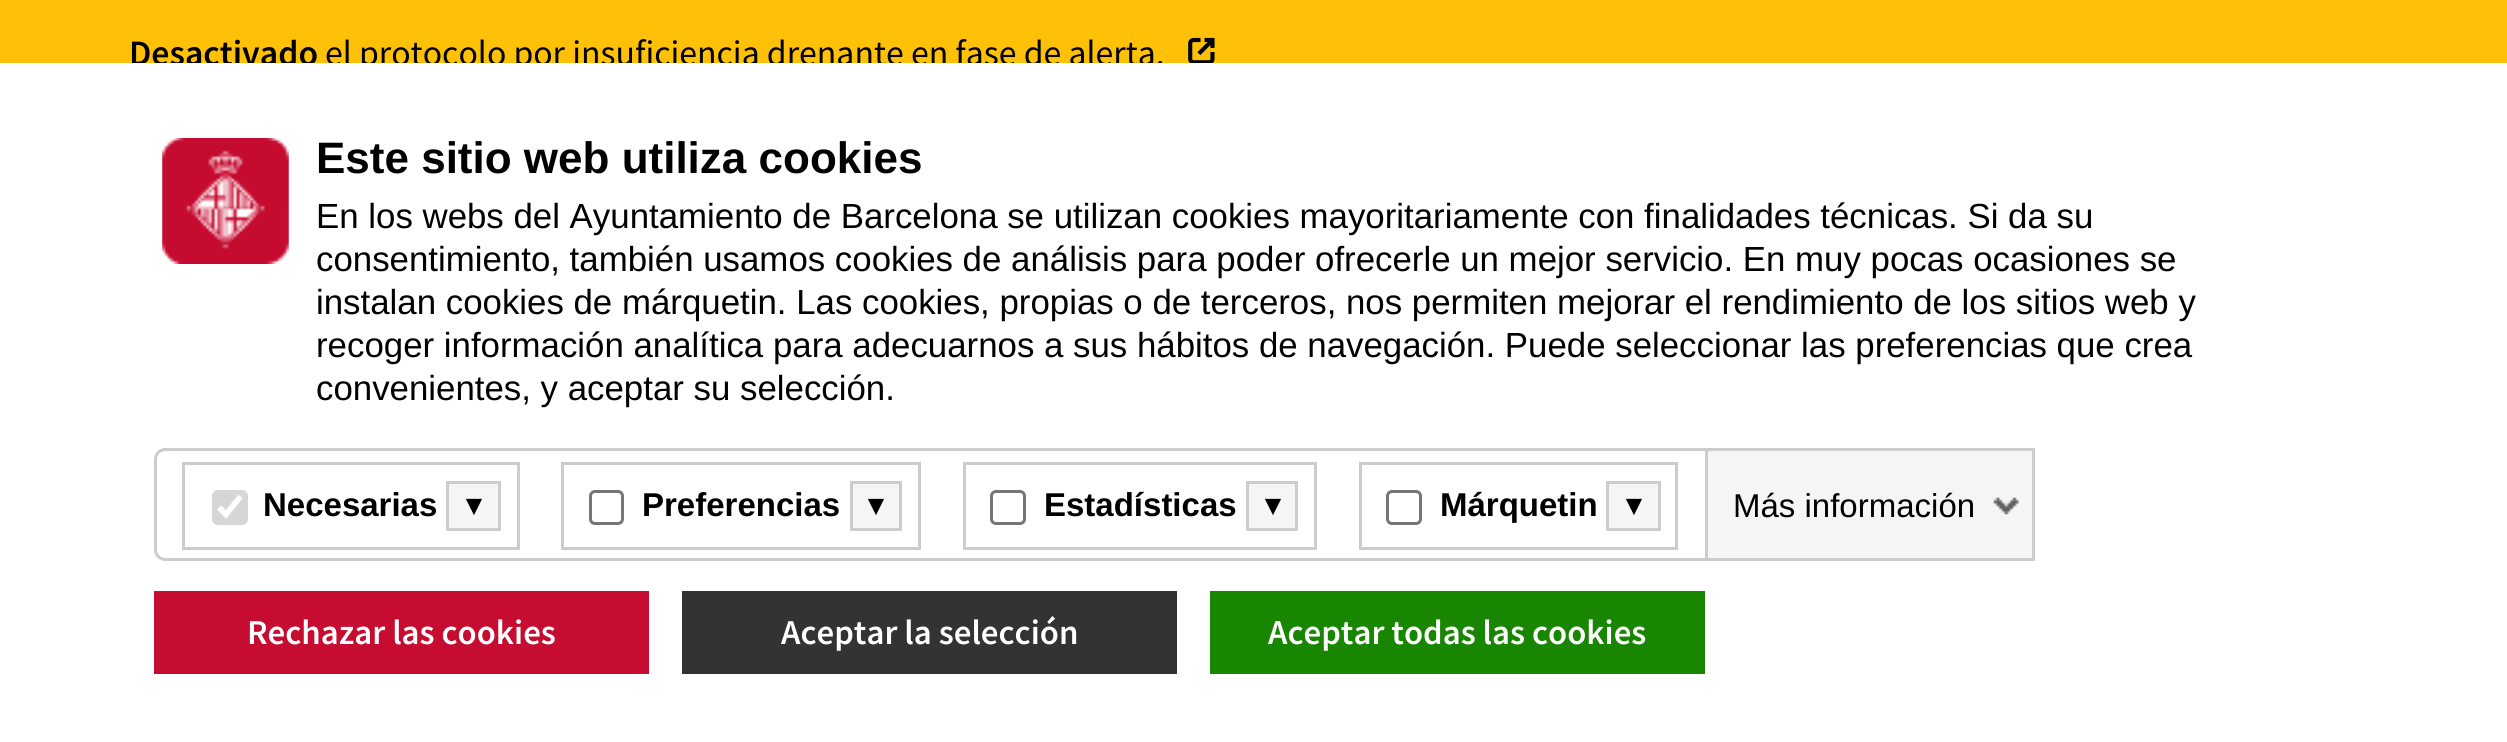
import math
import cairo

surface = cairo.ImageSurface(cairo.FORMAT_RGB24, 2507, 742)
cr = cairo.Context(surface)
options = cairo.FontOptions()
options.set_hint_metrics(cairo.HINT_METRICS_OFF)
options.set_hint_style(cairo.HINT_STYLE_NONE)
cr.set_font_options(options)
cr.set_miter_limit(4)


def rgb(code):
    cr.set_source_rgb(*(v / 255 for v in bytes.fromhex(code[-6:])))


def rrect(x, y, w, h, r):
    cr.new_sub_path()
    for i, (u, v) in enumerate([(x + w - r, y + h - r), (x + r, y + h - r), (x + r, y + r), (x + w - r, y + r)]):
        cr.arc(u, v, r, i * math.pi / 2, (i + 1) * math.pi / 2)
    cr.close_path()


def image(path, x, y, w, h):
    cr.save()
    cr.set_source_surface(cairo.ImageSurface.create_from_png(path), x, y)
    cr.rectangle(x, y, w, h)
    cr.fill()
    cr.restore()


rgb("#ffc107")
cr.paint()
image("img/1.png", 1188, 37, 27, 26)
cr.select_font_face("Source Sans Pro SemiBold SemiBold")
cr.set_font_size(35.75)
rgb("#000000")
cr.move_to(129, 65)
cr.show_text("Desactivado")
cr.select_font_face("Source Sans Pro")
cr.move_to(325, 65)
cr.show_text("el protocolo por insuficiencia drenante en fase de alerta.")
rgb("#ffffff")
cr.rectangle(0, 63, 2507, 679)
cr.fill()
image("img/2.png", 162, 138, 127, 126)
cr.select_font_face("Liberation Sans", cairo.FONT_SLANT_NORMAL, cairo.FONT_WEIGHT_BOLD)
cr.set_font_size(44)
rgb("#000000")
cr.move_to(316, 173)
cr.show_text("Este sitio web utiliza cookies")
cr.select_font_face("Liberation Sans")
cr.set_font_size(34.83)
for x, y, s in [
    (316, 228, "En los webs del Ayuntamiento de Barcelona se utilizan cookies mayoritariamente con finalidades técnicas. Si da su"),
    (316, 271, "consentimiento, también usamos cookies de análisis para poder ofrecerle un mejor servicio. En muy pocas ocasiones se"),
    (316, 314, "instalan cookies de márquetin. Las cookies, propias o de terceros, nos permiten mejorar el rendimiento de los sitios web y"),
    (316, 357, "recoger información analítica para adecuarnos a sus hábitos de navegación. Puede seleccionar las preferencias que crea"),
    (316, 400, "convenientes, y aceptar su selección."),
]:
    cr.move_to(x, y)
    cr.show_text(s)
cr.new_path()
cr.move_to(165, 449.5)
cr.line_to(1706.5, 449.5)
cr.line_to(1706.5, 559.5)
cr.line_to(165, 559.5)
cr.curve_to(160, 559.5, 155.5, 555, 155.5, 550)
cr.line_to(155.5, 459)
cr.curve_to(155.5, 454, 160, 449.5, 165, 449.5)
cr.close_path()
rgb("#cccccc")
cr.set_line_width(3)
cr.stroke()
cr.rectangle(183.5, 463.5, 335, 85)
cr.stroke()
rgb("#d6d6d6")
rrect(212, 490, 36, 35, 6)
cr.fill()
cr.new_path()
cr.move_to(219, 507.5)
cr.line_to(226, 514.5)
cr.line_to(240.5, 496.5)
rgb("#ffffff")
cr.set_line_width(5.7)
cr.stroke()
cr.select_font_face("Liberation Sans", cairo.FONT_SLANT_NORMAL, cairo.FONT_WEIGHT_BOLD)
cr.set_font_size(33)
rgb("#000000")
cr.move_to(263, 516)
cr.show_text("Necesarias")
rgb("#f5f5f5")
cr.rectangle(447.5, 482.5, 52, 47)
cr.fill_preserve()
rgb("#cccccc")
cr.set_line_width(3)
cr.stroke()
cr.select_font_face("DejaVu Sans", cairo.FONT_SLANT_NORMAL, cairo.FONT_WEIGHT_BOLD)
cr.set_font_size(30)
rgb("#000000")
cr.move_to(466, 515)
cr.show_text("▾")
cr.rectangle(562.5, 463.5, 357, 85)
rgb("#cccccc")
cr.stroke()
rrect(590.5, 491.5, 32, 32, 4.5)
rgb("#767676")
cr.stroke()
cr.select_font_face("Liberation Sans", cairo.FONT_SLANT_NORMAL, cairo.FONT_WEIGHT_BOLD)
cr.set_font_size(33)
rgb("#000000")
cr.move_to(642, 516)
cr.show_text("Preferencias")
rgb("#f5f5f5")
cr.rectangle(851.5, 482.5, 49, 47)
cr.fill_preserve()
rgb("#cccccc")
cr.stroke()
cr.select_font_face("DejaVu Sans", cairo.FONT_SLANT_NORMAL, cairo.FONT_WEIGHT_BOLD)
cr.set_font_size(30)
rgb("#000000")
cr.move_to(868, 515)
cr.show_text("▾")
cr.rectangle(964.5, 463.5, 351, 85)
rgb("#cccccc")
cr.stroke()
rrect(991.5, 491.5, 33, 32, 4.5)
rgb("#767676")
cr.stroke()
cr.select_font_face("Liberation Sans", cairo.FONT_SLANT_NORMAL, cairo.FONT_WEIGHT_BOLD)
cr.set_font_size(33)
rgb("#000000")
cr.move_to(1044, 516)
cr.show_text("Estadísticas")
rgb("#f5f5f5")
cr.rectangle(1247.5, 482.5, 49, 47)
cr.fill_preserve()
rgb("#cccccc")
cr.stroke()
cr.select_font_face("DejaVu Sans", cairo.FONT_SLANT_NORMAL, cairo.FONT_WEIGHT_BOLD)
cr.set_font_size(30)
rgb("#000000")
cr.move_to(1265, 515)
cr.show_text("▾")
cr.rectangle(1360.5, 463.5, 316, 85)
rgb("#cccccc")
cr.stroke()
rrect(1387.5, 491.5, 33, 32, 4.5)
rgb("#767676")
cr.stroke()
cr.select_font_face("Liberation Sans", cairo.FONT_SLANT_NORMAL, cairo.FONT_WEIGHT_BOLD)
cr.set_font_size(33)
rgb("#000000")
cr.move_to(1440, 516)
cr.show_text("Márquetin")
rgb("#f5f5f5")
cr.rectangle(1607.5, 482.5, 52, 47)
cr.fill_preserve()
rgb("#cccccc")
cr.stroke()
cr.select_font_face("DejaVu Sans", cairo.FONT_SLANT_NORMAL, cairo.FONT_WEIGHT_BOLD)
cr.set_font_size(30)
rgb("#000000")
cr.move_to(1626, 515)
cr.show_text("▾")
for x, y, w, h, color in [
    (1708, 451, 324, 107, "#f5f5f5"),
    (1708, 448, 327, 3, "#cccccc"),
    (2032, 448, 3, 113, "#cccccc"),
    (1708, 558, 327, 3, "#cccccc"),
]:
    rgb(color)
    cr.rectangle(x, y, w, h)
    cr.fill()
image("img/3.png", 1993, 497, 26, 18)
cr.select_font_face("Liberation Sans")
cr.set_font_size(33)
rgb("#000000")
cr.move_to(1733, 517)
cr.show_text("Más información")
rgb("#c60c30")
cr.rectangle(154, 591, 495, 83)
cr.fill()
cr.select_font_face("Source Sans Pro SemiBold SemiBold")
cr.set_font_size(34.83)
rgb("#ffffff")
cr.move_to(247, 644)
cr.show_text("Rechazar las cookies")
rgb("#333333")
cr.rectangle(682, 591, 495, 83)
cr.fill()
rgb("#ffffff")
cr.move_to(781, 644)
cr.show_text("Aceptar la selección")
rgb("#188600")
cr.rectangle(1210, 591, 495, 83)
cr.fill()
rgb("#ffffff")
cr.move_to(1268, 644)
cr.show_text("Aceptar todas las cookies")
surface.write_to_png("page.png")
